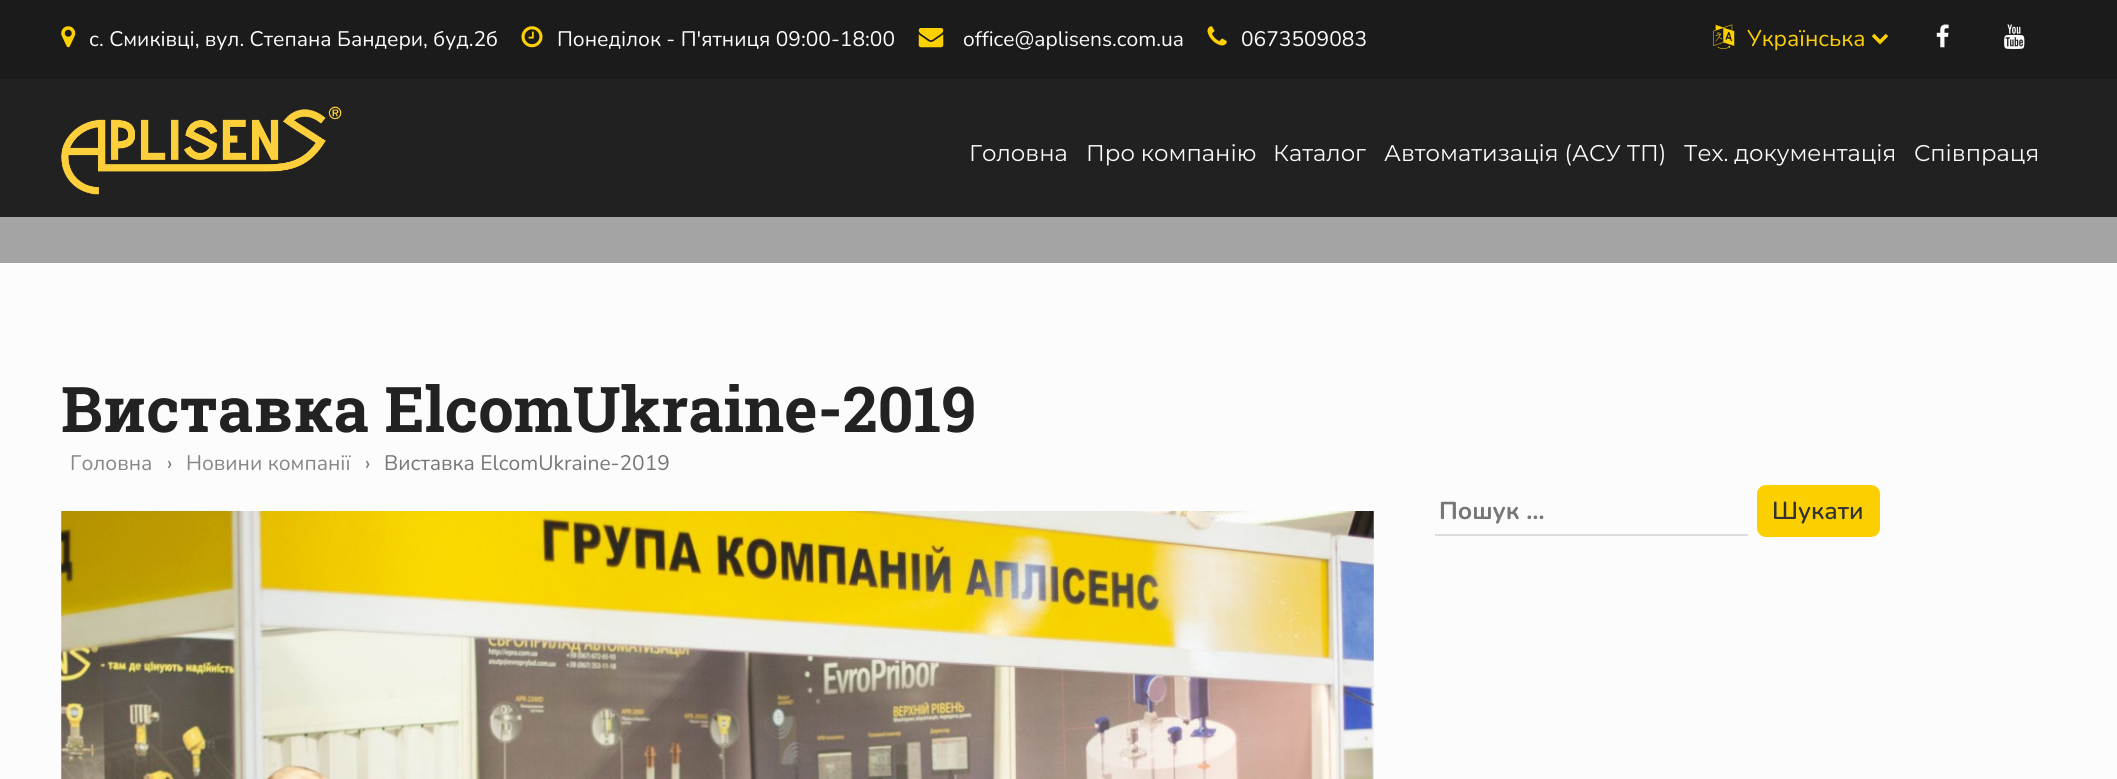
import math
import cairo

surface = cairo.ImageSurface(cairo.FORMAT_RGB24, 2117, 779)
cr = cairo.Context(surface)
options = cairo.FontOptions()
options.set_hint_metrics(cairo.HINT_METRICS_OFF)
options.set_hint_style(cairo.HINT_STYLE_NONE)
cr.set_font_options(options)
cr.set_miter_limit(4)


def rgb(code):
    cr.set_source_rgb(*(v / 255 for v in bytes.fromhex(code[-6:])))


def rrect(x, y, w, h, r):
    cr.new_sub_path()
    for i, (u, v) in enumerate([(x + w - r, y + h - r), (x + r, y + h - r), (x + r, y + r), (x + w - r, y + r)]):
        cr.arc(u, v, r, i * math.pi / 2, (i + 1) * math.pi / 2)
    cr.close_path()


def image(path, x, y, w, h):
    cr.save()
    cr.set_source_surface(cairo.ImageSurface.create_from_png(path), x, y)
    cr.rectangle(x, y, w, h)
    cr.fill()
    cr.restore()


rgb("#212121")
cr.paint()
rgb("#1b1b1b")
cr.rectangle(0, 0, 2117, 79)
cr.fill()
image("img/1.png", 61, 26, 15, 22)
image("img/2.png", 521, 26, 22, 22)
image("img/3.png", 918, 28, 26, 20)
image("img/4.png", 1207, 26, 20, 20)
image("img/5.png", 1713, 24, 22, 25)
cr.new_path()
cr.move_to(1873, 35)
cr.line_to(1880, 42)
cr.line_to(1887, 35)
rgb("#fcd000")
cr.set_line_width(3.5)
cr.stroke()
image("img/6.png", 1936, 24, 13, 24)
image("img/7.png", 2004, 24, 21, 25)
image("img/8.png", 61, 106, 281, 89)
rgb("#fcfcfc")
cr.rectangle(0, 263, 2117, 516)
cr.fill()
rgb("#a4a4a4")
cr.rectangle(0, 217, 2117, 46)
cr.fill()
image("img/9.png", 61, 511, 1313, 268)
rgb("#dcdcdc")
cr.rectangle(1435, 534, 313, 2)
cr.fill()
rgb("#fcd000")
rrect(1757, 485, 123, 52, 9)
cr.fill()
cr.select_font_face("Nunito")
cr.set_font_size(21)
rgb("#fcfcfc")
for x, y, s in [
    (89, 46, "с. Смиківці, вул. Степана Бандери, буд.2б"),
    (557, 46, "Понеділок - П'ятниця 09:00-18:00"),
    (963, 46, "office@aplisens.com.ua"),
    (1241, 46, "0673509083"),
]:
    cr.move_to(x, y)
    cr.show_text(s)
cr.set_font_size(22.75)
rgb("#fcd000")
cr.move_to(1747, 46)
cr.show_text("Українська")
cr.select_font_face("Montserrat")
rgb("#fcfcfc")
for x, y, s in [
    (969, 161, "Головна"),
    (1086, 161, "Про компанію"),
    (1273, 161, "Каталог"),
    (1384, 161, "Автоматизація (АСУ ТП)"),
    (1684, 161, "Тех. документація"),
    (1914, 161, "Співпраця"),
]:
    cr.move_to(x, y)
    cr.show_text(s)
cr.select_font_face("Roboto Slab", cairo.FONT_SLANT_NORMAL, cairo.FONT_WEIGHT_BOLD)
cr.set_font_size(63)
rgb("#222222")
cr.move_to(61, 432)
cr.show_text("Виставка ElcomUkraine-2019")
cr.select_font_face("Nunito")
cr.set_font_size(21)
rgb("#878787")
cr.move_to(70, 470)
cr.show_text("Головна")
rgb("#767676")
cr.move_to(167, 470)
cr.show_text("›")
rgb("#878787")
cr.move_to(186, 470)
cr.show_text("Новини компанії")
rgb("#767676")
cr.move_to(365, 470)
cr.show_text("›")
cr.move_to(384, 470)
cr.show_text("Виставка ElcomUkraine-2019")
cr.select_font_face("Nunito", cairo.FONT_SLANT_NORMAL, cairo.FONT_WEIGHT_BOLD)
cr.set_font_size(24.5)
cr.move_to(1439, 519)
cr.show_text("Пошук …")
cr.select_font_face("Nunito SemiBold")
rgb("#323232")
cr.move_to(1772, 519)
cr.show_text("Шукати")
surface.write_to_png("page.png")
